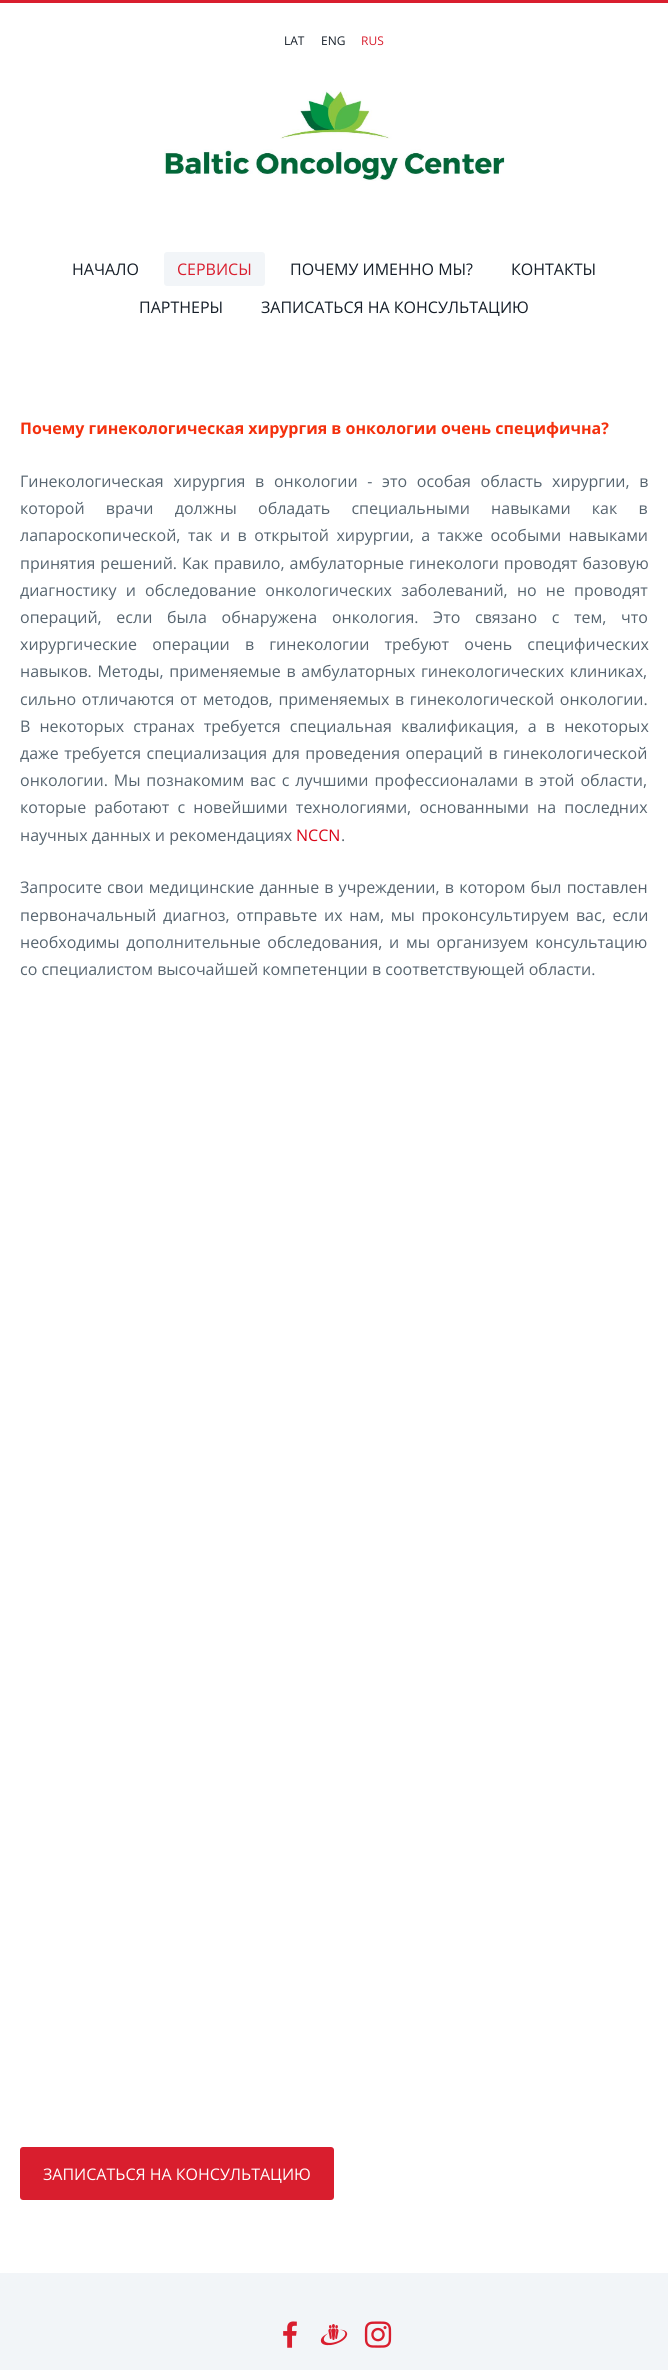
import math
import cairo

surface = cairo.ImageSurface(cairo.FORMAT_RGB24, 668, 2370)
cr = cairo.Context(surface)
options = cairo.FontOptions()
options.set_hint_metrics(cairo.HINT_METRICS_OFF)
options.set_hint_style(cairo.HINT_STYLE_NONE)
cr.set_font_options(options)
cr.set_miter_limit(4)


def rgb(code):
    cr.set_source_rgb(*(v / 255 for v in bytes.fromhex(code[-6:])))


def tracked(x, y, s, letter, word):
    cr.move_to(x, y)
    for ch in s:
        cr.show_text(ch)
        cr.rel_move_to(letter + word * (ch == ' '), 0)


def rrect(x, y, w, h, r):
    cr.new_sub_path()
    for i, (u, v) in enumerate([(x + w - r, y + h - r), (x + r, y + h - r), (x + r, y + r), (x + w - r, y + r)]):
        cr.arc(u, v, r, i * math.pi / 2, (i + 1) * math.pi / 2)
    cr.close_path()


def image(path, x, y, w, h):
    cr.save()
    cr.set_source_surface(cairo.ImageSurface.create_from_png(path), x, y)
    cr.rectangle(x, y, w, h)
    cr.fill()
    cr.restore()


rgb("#f2f5f8")
cr.paint()
rgb("#ffffff")
cr.rectangle(0, 3, 668, 2270)
cr.fill()
rgb("#d91e2e")
cr.rectangle(0, 0, 668, 3)
cr.fill()
image("img/1.png", 164, 90, 341, 91)
rgb("#f2f5f8")
rrect(164, 252, 101, 34, 3)
cr.fill()
rgb("#d91e2e")
rrect(20, 2147, 314, 53, 3)
cr.fill()
image("img/2.png", 283, 2321, 14, 27)
image("img/3.png", 320, 2324, 28, 22)
image("img/4.png", 364, 2321, 28, 27)
cr.select_font_face("Open Sans")
cr.set_font_size(12)
rgb("#151e28")
cr.move_to(284, 45)
cr.show_text("LAT")
cr.move_to(321, 45)
cr.show_text("ENG")
rgb("#d91e2e")
cr.move_to(361, 45)
cr.show_text("RUS")
cr.set_font_size(16)
rgb("#151e28")
cr.move_to(72, 275)
cr.show_text("НАЧАЛО")
rgb("#d91e2e")
cr.move_to(177, 275)
cr.show_text("СЕРВИСЫ")
rgb("#151e28")
for x, y, s in [
    (290, 275, "ПОЧЕМУ ИМЕННО МЫ?"),
    (511, 275, "КОНТАКТЫ"),
    (139, 313, "ПАРТНЕРЫ"),
    (261, 313, "ЗАПИСАТЬСЯ НА КОНСУЛЬТАЦИЮ"),
]:
    cr.move_to(x, y)
    cr.show_text(s)
cr.select_font_face("Open Sans", cairo.FONT_SLANT_NORMAL, cairo.FONT_WEIGHT_BOLD)
rgb("#f4300d")
cr.move_to(20, 434)
cr.show_text("Почему гинекологическая хирургия в онкологии очень специфична?")
cr.select_font_face("Open Sans")
rgb("#56646f")
tracked(20, 487, "Гинекологическая хирургия в онкологии - это особая область хирургии, в", 0, 5.5)
tracked(20, 514, "которой врачи должны обладать специальными навыками как в", 0, 17)
tracked(20, 541, "лапароскопической, так и в открытой хирургии, а также особыми навыками", 0, 3.25)
tracked(20, 569, "принятия решений. Как правило, амбулаторные гинекологи проводят базовую", 0, 0.75)
tracked(20, 596, "диагностику и обследование онкологических заболеваний, но не проводят", 0, 5)
tracked(20, 623, "операций, если была обнаружена онкология. Это связано с тем, что", 0, 10.5)
tracked(20, 650, "хирургические операции в гинекологии требуют очень специфических", 0, 11)
tracked(20, 677, "навыков. Методы, применяемые в амбулаторных гинекологических клиниках,", 0, 1.5)
tracked(20, 705, "сильно отличаются от методов, применяемых в гинекологической онкологии.", 0, 1.5)
tracked(20, 732, "В некоторых странах требуется специальная квалификация, а в некоторых", 0, 5)
tracked(20, 759, "даже требуется специализация для проведения операций в гинекологической", 0, 1.25)
tracked(20, 786, "онкологии. Мы познакомим вас с лучшими профессионалами в этой области,", 0, 1.75)
tracked(20, 813, "которые работают с новейшими технологиями, основанными на последних", 0, 4)
cr.move_to(20, 841)
cr.show_text("научных данных и рекомендациях")
rgb("#d90416")
cr.move_to(296, 841)
cr.show_text("NCCN")
rgb("#56646f")
cr.move_to(341, 841)
cr.show_text(".")
tracked(20, 893, "Запросите свои медицинские данные в учреждении, в котором был поставлен", 0, 1)
tracked(20, 921, "первоначальный диагноз, отправьте их нам, мы проконсультируем вас, если", 0, 2.5)
tracked(20, 948, "необходимы дополнительные обследования, и мы организуем консультацию", 0, 2.5)
cr.move_to(20, 975)
cr.show_text("со специалистом высочайшей компетенции в соответствующей области.")
rgb("#ffffff")
cr.move_to(43, 2180)
cr.show_text("ЗАПИСАТЬСЯ НА КОНСУЛЬТАЦИЮ")
surface.write_to_png("page.png")
